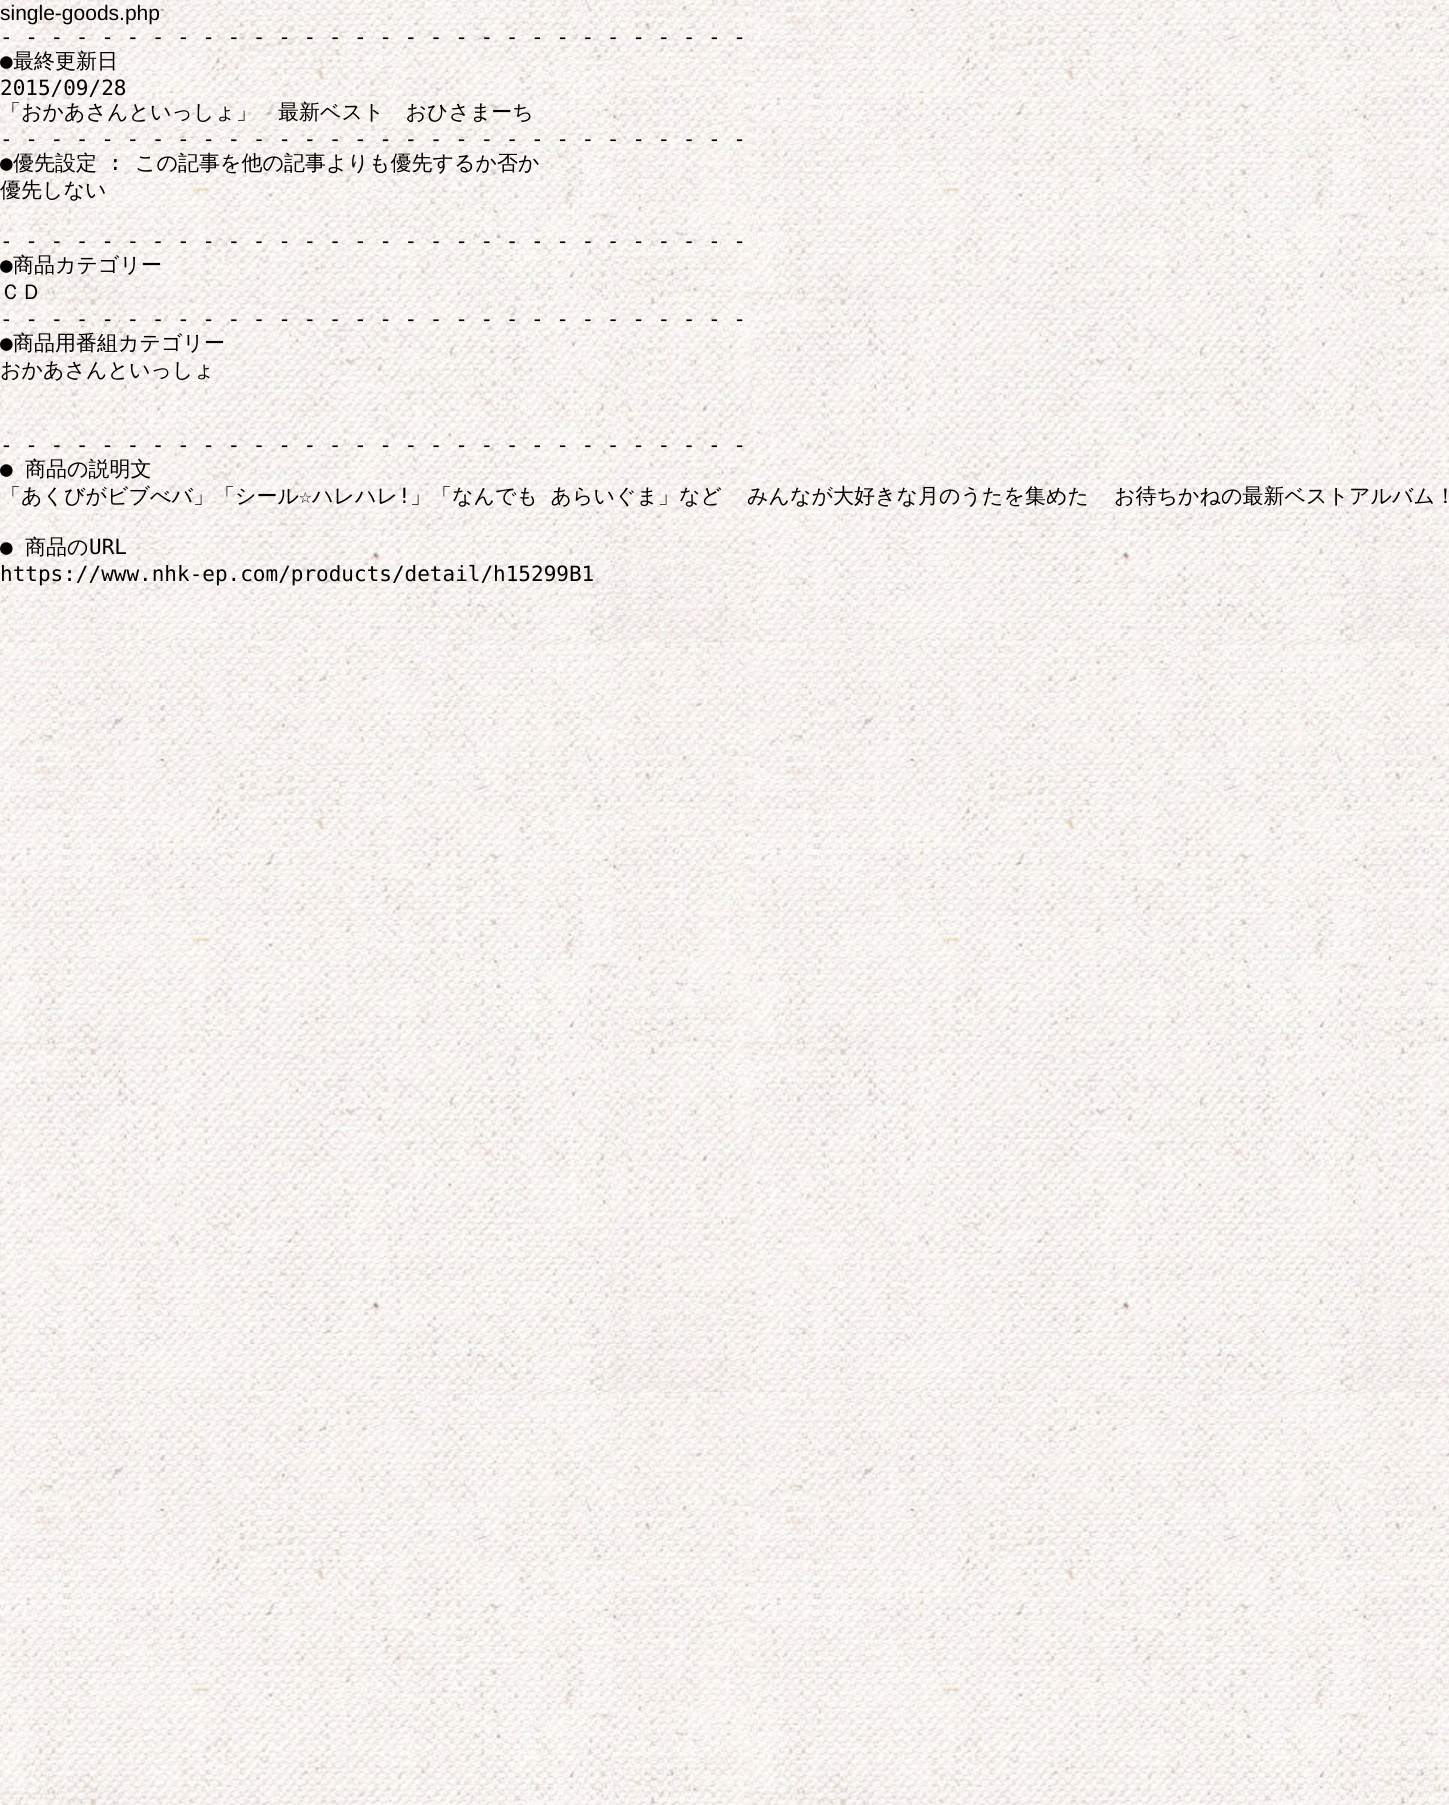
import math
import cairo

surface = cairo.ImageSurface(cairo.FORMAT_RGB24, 1449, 1805)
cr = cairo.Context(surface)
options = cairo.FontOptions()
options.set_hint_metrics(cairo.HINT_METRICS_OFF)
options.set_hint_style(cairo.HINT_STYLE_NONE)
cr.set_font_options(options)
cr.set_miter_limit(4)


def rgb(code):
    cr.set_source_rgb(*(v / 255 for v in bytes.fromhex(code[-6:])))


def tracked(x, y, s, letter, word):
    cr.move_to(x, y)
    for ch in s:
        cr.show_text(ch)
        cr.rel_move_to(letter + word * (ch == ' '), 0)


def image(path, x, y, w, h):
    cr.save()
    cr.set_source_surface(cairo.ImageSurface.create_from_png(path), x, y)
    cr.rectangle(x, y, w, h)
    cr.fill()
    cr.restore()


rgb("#ffffff")
cr.paint()
image("img/1.png", 0, 0, 1449, 1805)
cr.select_font_face("Liberation Sans")
cr.set_font_size(21)
rgb("#000000")
cr.move_to(0, 20)
cr.show_text("single-goods.php")
cr.select_font_face("DejaVu Sans Mono")
cr.move_to(0, 44)
cr.show_text("- - - - - - - - - - - - - - - - - - - - - - - - - - - - - -")
cr.move_to(0, 68)
cr.show_text("●")
cr.select_font_face("WenQuanYi Zen Hei Medium")
cr.move_to(13, 68)
cr.show_text("最終更新日")
cr.select_font_face("DejaVu Sans Mono")
cr.move_to(0, 95)
cr.show_text("2015/09/28")
cr.select_font_face("WenQuanYi Zen Hei Medium")
cr.move_to(0, 119)
cr.show_text("「おかあさんといっしょ」　最新ベスト　おひさまーち")
cr.select_font_face("DejaVu Sans Mono")
cr.move_to(0, 146)
cr.show_text("- - - - - - - - - - - - - - - - - - - - - - - - - - - - - -")
cr.move_to(0, 170)
cr.show_text("●")
cr.select_font_face("WenQuanYi Zen Hei Medium")
cr.move_to(13, 170)
cr.show_text("優先設定")
cr.select_font_face("DejaVu Sans Mono")
cr.move_to(109, 170)
cr.show_text(":")
cr.select_font_face("WenQuanYi Zen Hei Medium")
cr.move_to(135, 170)
cr.show_text("この記事を他の記事よりも優先するか否か")
cr.move_to(0, 197)
cr.show_text("優先しない")
cr.select_font_face("DejaVu Sans Mono")
cr.move_to(0, 248)
cr.show_text("- - - - - - - - - - - - - - - - - - - - - - - - - - - - - -")
cr.move_to(0, 272)
cr.show_text("●")
cr.select_font_face("WenQuanYi Zen Hei Medium")
cr.move_to(13, 272)
cr.show_text("商品カテゴリー")
cr.move_to(0, 299)
cr.show_text("ＣＤ")
cr.select_font_face("DejaVu Sans Mono")
cr.move_to(0, 326)
cr.show_text("- - - - - - - - - - - - - - - - - - - - - - - - - - - - - -")
cr.move_to(0, 350)
cr.show_text("●")
cr.select_font_face("WenQuanYi Zen Hei Medium")
cr.move_to(13, 350)
cr.show_text("商品用番組カテゴリー")
cr.move_to(0, 377)
cr.show_text("おかあさんといっしょ")
cr.select_font_face("DejaVu Sans Mono")
cr.move_to(0, 452)
cr.show_text("- - - - - - - - - - - - - - - - - - - - - - - - - - - - - -")
cr.move_to(0, 476)
cr.show_text("●")
cr.select_font_face("WenQuanYi Zen Hei Medium")
cr.move_to(25, 476)
cr.show_text("商品の説明文")
cr.move_to(0, 503)
cr.show_text("「あくびがビブべバ」「シール")
cr.select_font_face("DejaVu Sans Mono")
cr.move_to(299, 503)
cr.show_text("☆")
cr.select_font_face("WenQuanYi Zen Hei Medium")
cr.move_to(312, 503)
cr.show_text("ハレハレ")
cr.select_font_face("DejaVu Sans Mono")
cr.move_to(398, 503)
cr.show_text("!")
cr.select_font_face("WenQuanYi Zen Hei Medium")
tracked(410, 503, "」「なんでも あらいぐま」など  みんなが大好きな月のうたを集めた  お待ちかねの最新ベストアルバム！", 0, 6.25)
cr.select_font_face("DejaVu Sans Mono")
cr.move_to(0, 554)
cr.show_text("●")
cr.select_font_face("WenQuanYi Zen Hei Medium")
cr.move_to(25, 554)
cr.show_text("商品の")
cr.select_font_face("DejaVu Sans Mono")
cr.move_to(89, 554)
cr.show_text("URL")
cr.move_to(0, 581)
cr.show_text("https://www.nhk-ep.com/products/detail/h15299B1")
surface.write_to_png("page.png")
